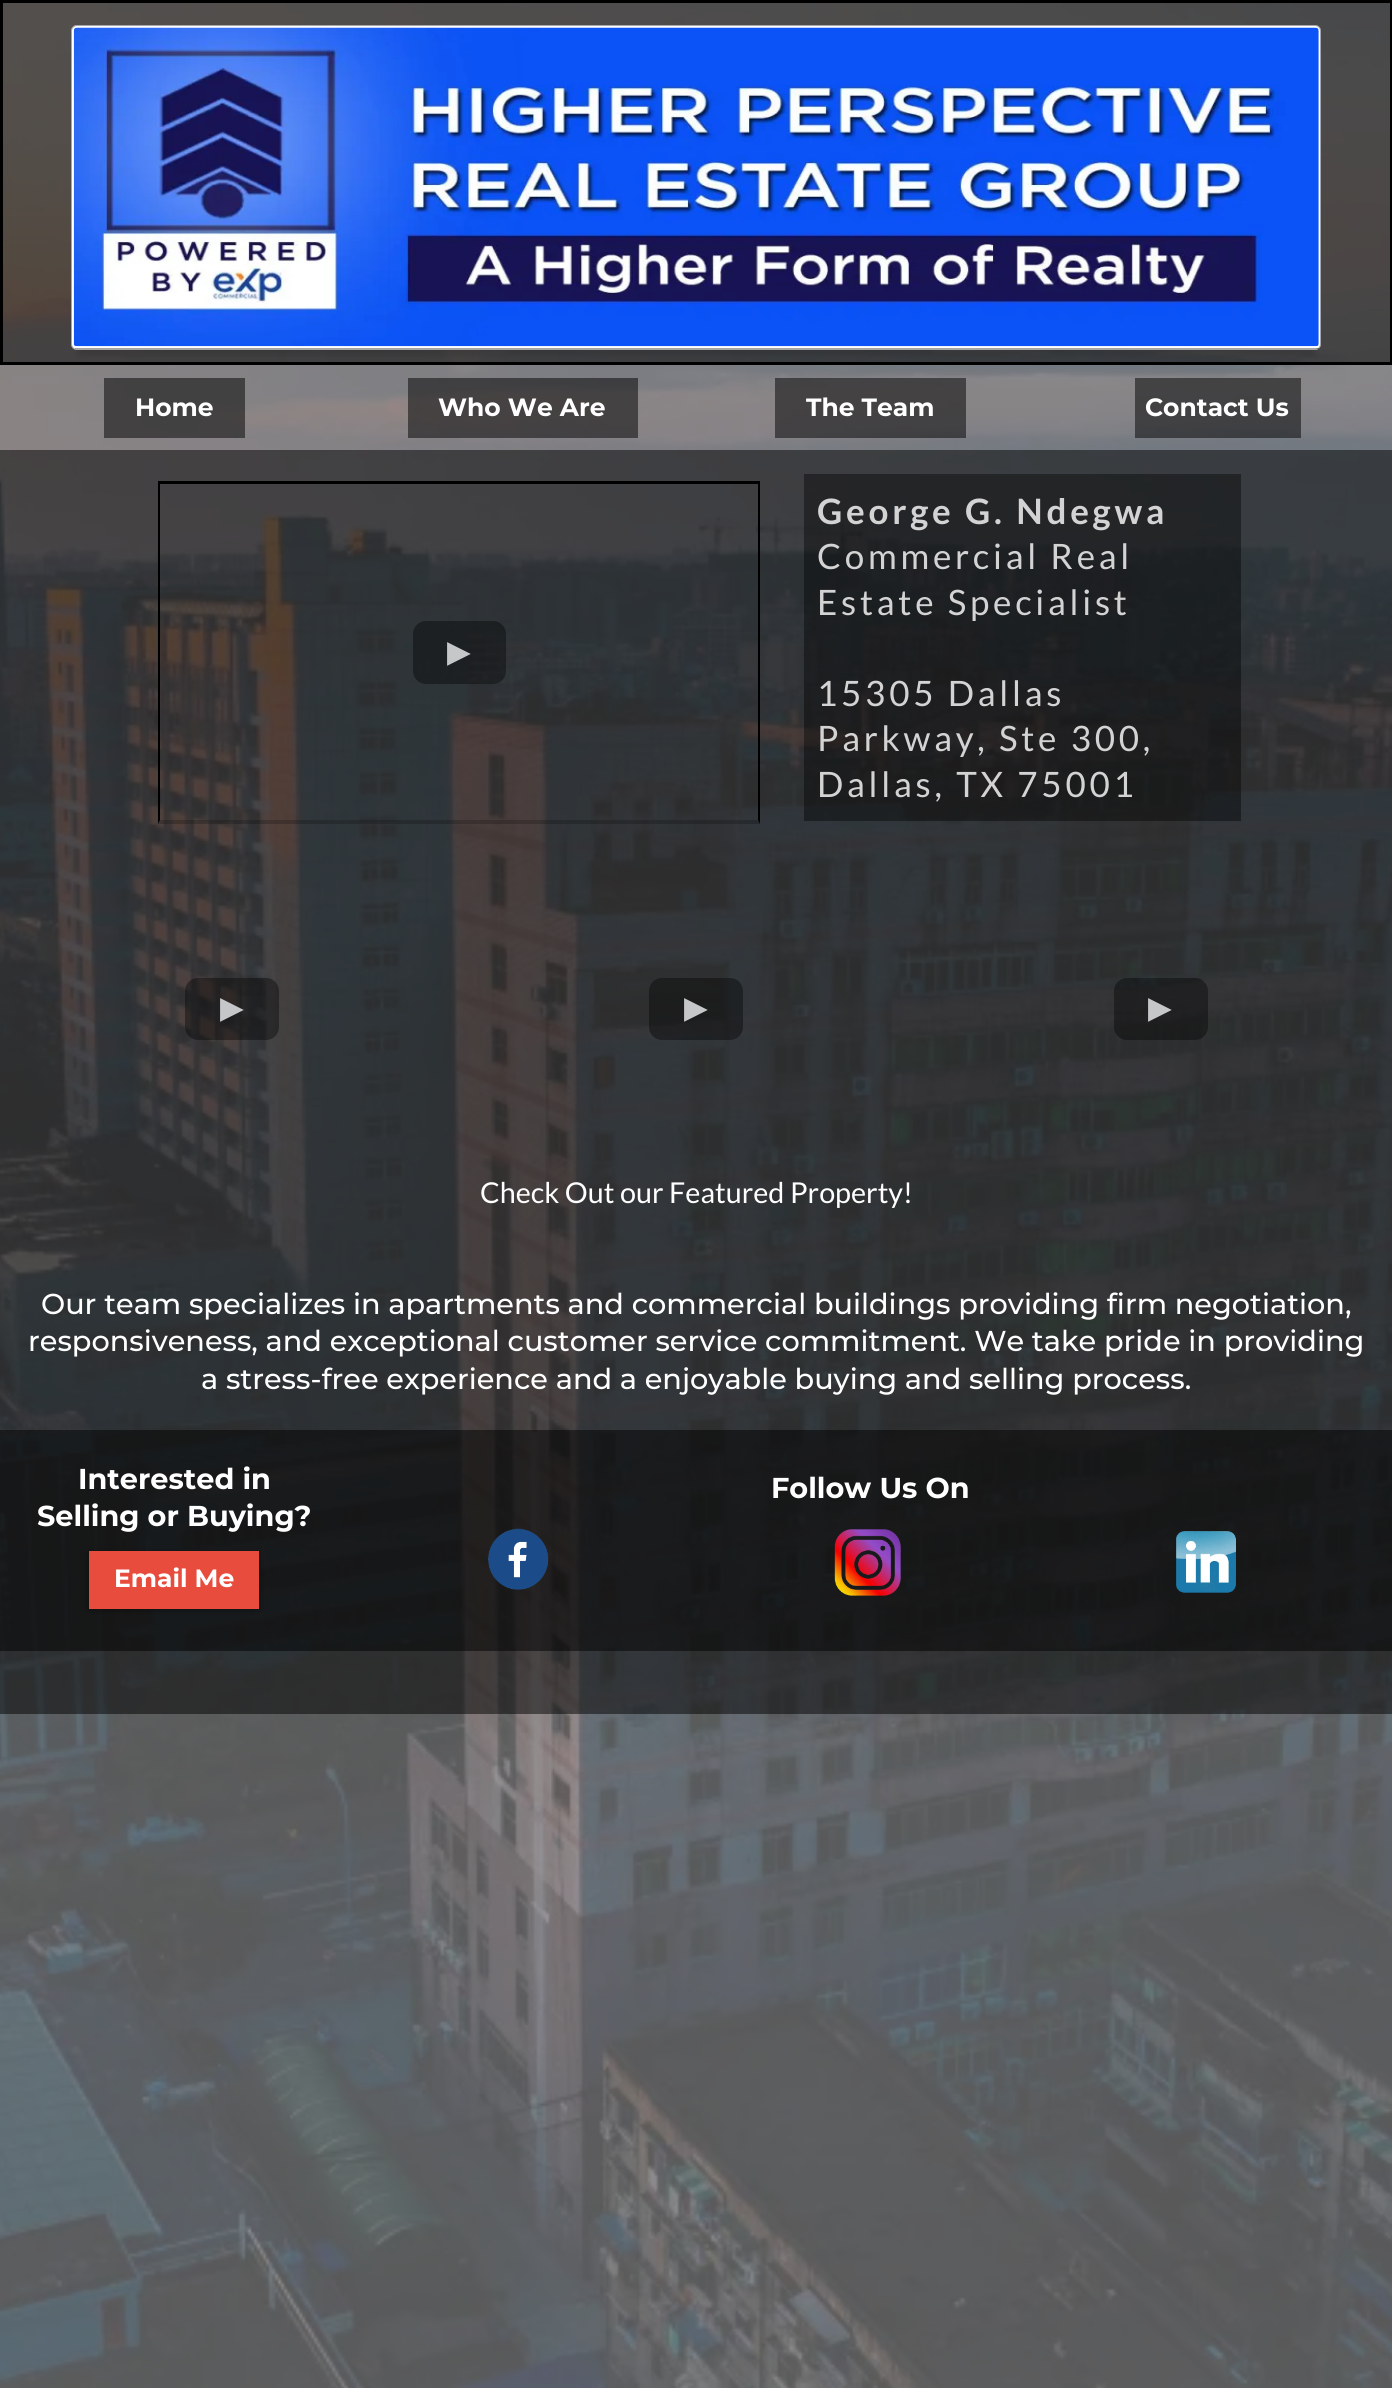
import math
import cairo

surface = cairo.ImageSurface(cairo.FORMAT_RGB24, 1392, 2388)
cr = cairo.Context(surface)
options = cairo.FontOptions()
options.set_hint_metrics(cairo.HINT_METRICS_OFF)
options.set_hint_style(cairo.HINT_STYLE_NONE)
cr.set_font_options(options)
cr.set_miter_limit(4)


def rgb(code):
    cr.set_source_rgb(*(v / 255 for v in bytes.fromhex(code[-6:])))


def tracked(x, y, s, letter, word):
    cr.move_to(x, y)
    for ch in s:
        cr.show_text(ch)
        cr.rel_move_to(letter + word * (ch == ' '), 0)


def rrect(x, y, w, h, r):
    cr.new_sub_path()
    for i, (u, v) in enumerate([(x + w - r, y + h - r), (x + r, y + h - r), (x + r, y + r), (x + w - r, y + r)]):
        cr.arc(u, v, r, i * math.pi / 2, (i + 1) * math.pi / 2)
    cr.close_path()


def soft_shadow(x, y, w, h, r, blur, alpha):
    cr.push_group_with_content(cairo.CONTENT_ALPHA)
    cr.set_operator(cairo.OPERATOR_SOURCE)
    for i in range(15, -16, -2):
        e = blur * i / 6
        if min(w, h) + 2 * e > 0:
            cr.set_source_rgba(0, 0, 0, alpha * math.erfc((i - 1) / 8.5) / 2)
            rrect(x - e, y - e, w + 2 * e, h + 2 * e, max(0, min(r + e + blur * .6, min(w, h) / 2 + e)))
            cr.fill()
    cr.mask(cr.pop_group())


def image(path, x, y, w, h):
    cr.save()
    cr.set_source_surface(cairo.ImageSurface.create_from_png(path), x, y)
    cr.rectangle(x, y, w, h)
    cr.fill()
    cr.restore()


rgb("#808080")
cr.paint()
image("img/1.png", 0, 3, 1392, 2385)
cr.set_source_rgba(0, 0, 0, 0.5)
cr.rectangle(1.5, 1.5, 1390, 362)
cr.fill_preserve()
rgb("#000000")
cr.set_line_width(3)
cr.stroke()
rgb("#000000")
soft_shadow(79, 45, 1235, 310, 0, 4, 0.15)
rgb("#ffffff")
rrect(71, 25, 1250, 325, 6)
cr.fill()
rrect(71.5, 25.5, 1249, 324, 5.5)
cr.set_source_rgba(0, 0, 0, 0.35)
cr.set_line_width(1)
cr.stroke()
image("img/2.png", 73, 27, 1246, 320)
cr.rectangle(75, 348, 1244, 1)
cr.fill()
cr.set_source_rgba(0, 0, 0, 0.5)
cr.rectangle(104, 378, 141, 60)
cr.fill()
cr.rectangle(408, 378, 230, 60)
cr.fill()
cr.rectangle(775, 378, 191, 60)
cr.fill()
cr.rectangle(1135, 378, 166, 60)
cr.fill()
cr.rectangle(0, 450, 1392, 1264)
cr.fill()
rgb("#000000")
cr.rectangle(158, 481, 602, 3)
cr.fill()
cr.new_path()
cr.move_to(760, 481)
cr.line_to(760, 824)
cr.line_to(758, 820)
cr.line_to(758, 484)
cr.close_path()
cr.fill()
cr.set_source_rgba(0, 0, 0, 0.2)
cr.new_path()
cr.move_to(760, 824)
cr.line_to(158, 824)
cr.line_to(160, 820)
cr.line_to(758, 820)
cr.close_path()
cr.fill()
rgb("#000000")
cr.new_path()
cr.move_to(158, 824)
cr.line_to(158, 481)
cr.line_to(160, 484)
cr.line_to(160, 820)
cr.close_path()
cr.fill()
cr.set_source_rgba(0, 0, 0, 0.38)
rrect(413, 621, 93, 63, 13)
cr.fill()
cr.set_source_rgba(0, 0, 0, 0.4)
cr.rectangle(804, 474, 437, 347)
cr.fill()
cr.set_source_rgba(0, 0, 0, 0.38)
rrect(185, 978, 94, 62, 13)
cr.fill()
rrect(649, 978, 94, 62, 13)
cr.fill()
rrect(1114, 978, 94, 62, 13)
cr.fill()
cr.set_source_rgba(0, 0, 0, 0.5)
cr.rectangle(0, 1430, 1392, 221)
cr.fill()
rgb("#000000")
soft_shadow(89, 1553, 170, 57, 0, 3, 0.4)
rgb("#e74c3c")
cr.rectangle(89, 1551, 170, 58)
cr.fill()
image("img/3.png", 834, 1529, 67, 67)
image("img/4.png", 488, 1528, 61, 62)
image("img/5.png", 1176, 1531, 60, 62)
cr.select_font_face("Montserrat", cairo.FONT_SLANT_NORMAL, cairo.FONT_WEIGHT_BOLD)
cr.set_font_size(25)
rgb("#ffffff")
for x, y, s in [
    (135, 416, "Home"),
    (438, 416, "Who We Are"),
    (806, 416, "The Team"),
    (1145, 416, "Contact Us"),
]:
    cr.move_to(x, y)
    cr.show_text(s)
cr.select_font_face("DejaVu Sans")
cr.set_font_size(31)
rgb("#c6c7c8")
cr.move_to(447, 662)
cr.show_text("▶")
cr.select_font_face("Lato", cairo.FONT_SLANT_NORMAL, cairo.FONT_WEIGHT_BOLD)
cr.set_font_size(35)
rgb("#d3d3d4")
tracked(817, 524, "George G. Ndegwa", 3.75, 0)
cr.select_font_face("Lato")
for x, y, s in [
    (817, 569, "Commercial Real"),
    (817, 615, "Estate Specialist"),
    (817, 706, "15305 Dallas"),
    (817, 751, "Parkway, Ste 300,"),
    (817, 797, "Dallas, TX 75001"),
]:
    tracked(x, y, s, 3.75, 0)
cr.select_font_face("DejaVu Sans")
cr.set_font_size(31)
rgb("#c6c7c8")
for x, y, s in [
    (220, 1018, "▶"),
    (684, 1018, "▶"),
    (1148, 1018, "▶"),
]:
    cr.move_to(x, y)
    cr.show_text(s)
cr.select_font_face("Lato")
cr.set_font_size(28.75)
rgb("#ffffff")
cr.move_to(480, 1203)
cr.show_text("Check Out our Featured Property!")
cr.select_font_face("Montserrat Medium")
for x, y, s in [
    (41, 1314, "Our team specializes in apartments and commercial buildings providing firm negotiation,"),
    (28, 1351, "responsiveness, and exceptional customer service commitment. We take pride in providing"),
    (201, 1389, "a stress-free experience and a enjoyable buying and selling process."),
]:
    cr.move_to(x, y)
    cr.show_text(s)
cr.select_font_face("Montserrat", cairo.FONT_SLANT_NORMAL, cairo.FONT_WEIGHT_BOLD)
cr.move_to(78, 1489)
cr.show_text("Interested in")
cr.move_to(37, 1526)
cr.show_text("Selling or Buying?")
cr.set_font_size(25)
cr.move_to(114, 1587)
cr.show_text("Email Me")
cr.set_font_size(28.75)
cr.move_to(771, 1498)
cr.show_text("Follow Us On")
surface.write_to_png("page.png")
